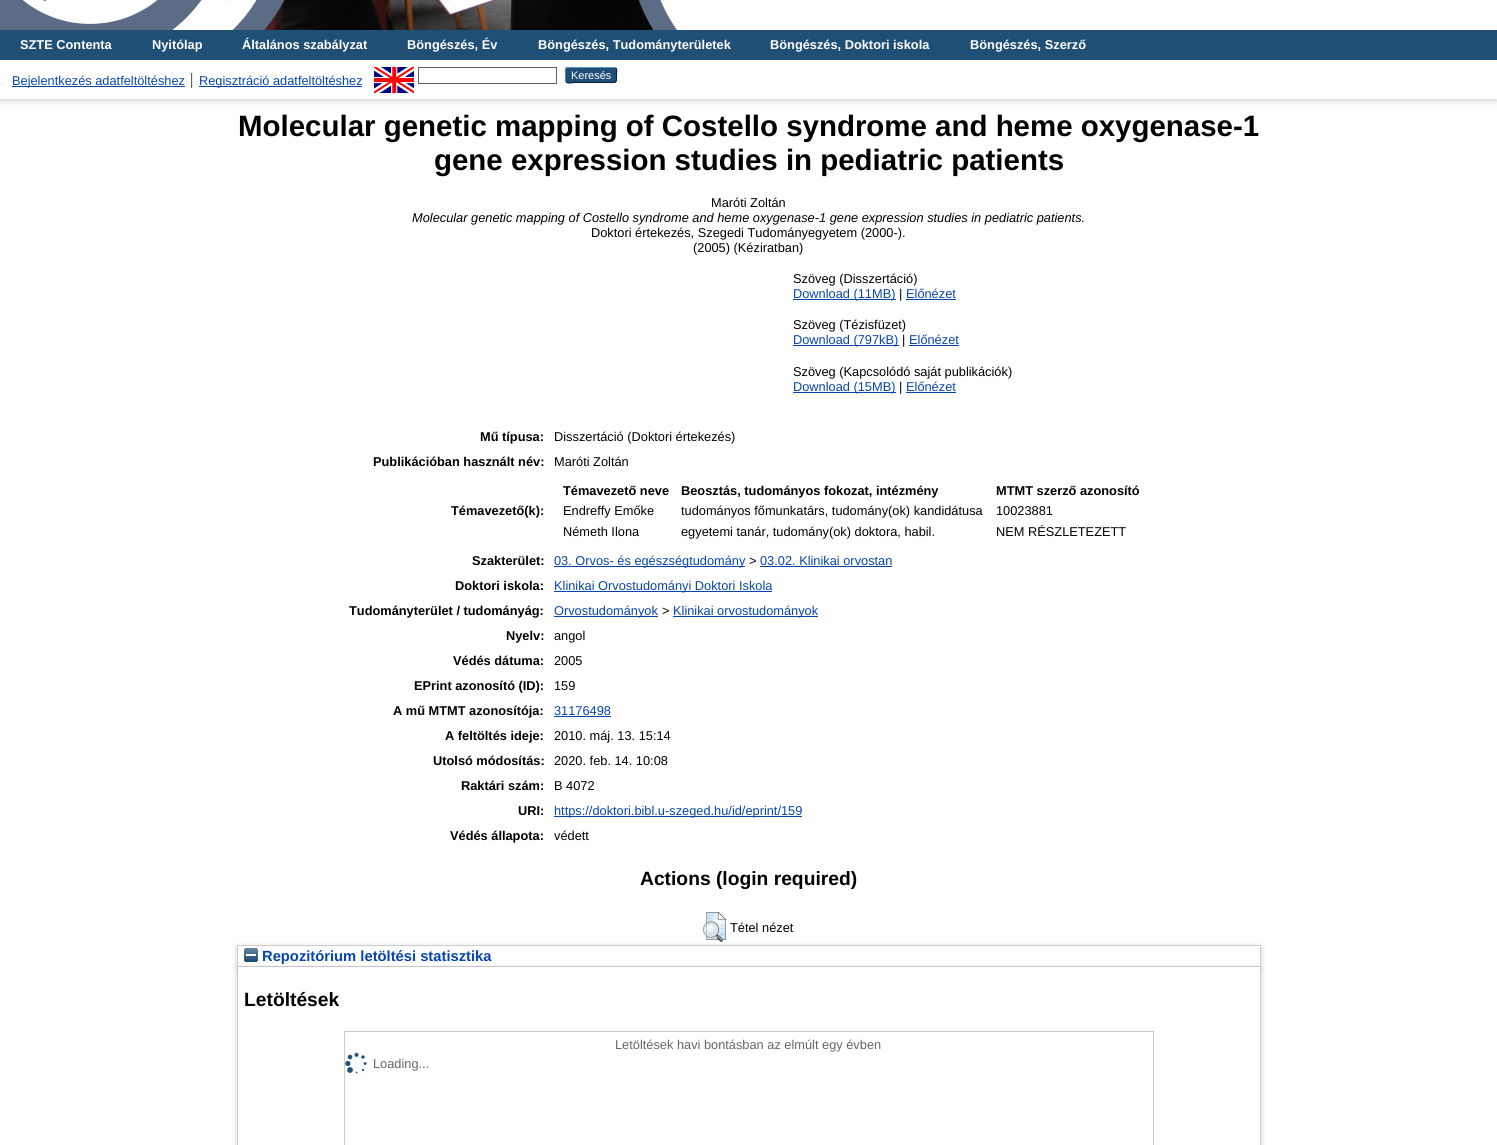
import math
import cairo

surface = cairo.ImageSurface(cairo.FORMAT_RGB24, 1497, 1145)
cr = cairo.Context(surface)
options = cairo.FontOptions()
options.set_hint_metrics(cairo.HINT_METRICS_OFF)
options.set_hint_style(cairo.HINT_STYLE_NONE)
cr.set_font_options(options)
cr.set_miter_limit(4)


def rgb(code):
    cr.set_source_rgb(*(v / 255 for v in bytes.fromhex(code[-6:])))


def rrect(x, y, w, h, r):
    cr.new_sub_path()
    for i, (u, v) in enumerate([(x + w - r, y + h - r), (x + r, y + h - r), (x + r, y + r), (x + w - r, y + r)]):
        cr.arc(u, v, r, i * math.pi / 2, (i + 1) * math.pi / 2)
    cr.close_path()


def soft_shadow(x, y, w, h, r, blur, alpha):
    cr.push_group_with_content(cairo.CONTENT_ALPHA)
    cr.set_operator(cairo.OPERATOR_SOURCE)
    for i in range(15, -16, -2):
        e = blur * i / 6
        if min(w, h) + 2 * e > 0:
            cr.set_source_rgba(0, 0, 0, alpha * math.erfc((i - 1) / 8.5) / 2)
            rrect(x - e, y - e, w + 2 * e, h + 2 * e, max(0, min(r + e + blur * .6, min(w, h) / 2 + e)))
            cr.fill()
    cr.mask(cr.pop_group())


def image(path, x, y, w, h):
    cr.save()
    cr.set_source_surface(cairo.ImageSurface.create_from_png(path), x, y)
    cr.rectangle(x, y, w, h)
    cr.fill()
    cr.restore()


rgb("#ffffff")
cr.paint()
image("img/1.png", 0, 0, 677, 30)
rgb("#204f76")
cr.rectangle(0, 30, 1497, 30)
cr.fill()
rgb("#646464")
soft_shadow(0, 63, 1497, 38, 0, 3, 0.3)
for x, y, w, h, color in [
    (0, 61, 1497, 38, "#ffffff"),
    (191, 73, 1, 15, "#606060"),
    (12, 86, 173, 1, "#0645ad"),
    (192, 73, 1, 15, "#e8e8e8"),
    (199, 86, 163, 1, "#0645ad"),
]:
    rgb(color)
    cr.rectangle(x, y, w, h)
    cr.fill()
image("img/2.png", 374, 67, 40, 26)
cr.rectangle(418.5, 67.5, 138, 16)
rgb("#606060")
cr.set_line_width(1)
cr.stroke()
rgb("#1f4f76")
rrect(565, 67, 52, 16, 3)
cr.fill()
cr.new_path()
cr.move_to(566, 68)
cr.line_to(568, 67.5)
cr.line_to(614, 67.5)
cr.line_to(616, 68)
rgb("#5b97c7")
cr.stroke()
cr.new_path()
cr.move_to(616, 68)
cr.curve_to(617.5, 70, 616.5, 73, 616.5, 75)
cr.curve_to(616.5, 84, 616.5, 82.5, 606.5, 82.5)
cr.line_to(575.5, 82.5)
cr.curve_to(572.5, 82.5, 568.5, 84, 566, 82)
rgb("#0d2131")
cr.stroke()
cr.new_path()
cr.move_to(566, 82)
cr.curve_to(565, 80.5, 565.5, 76.5, 565.5, 75)
cr.curve_to(565.5, 73.5, 565, 69.5, 566, 68)
rgb("#5287b3")
cr.stroke()
for x, y, w, h, color in [
    (793, 299, 103, 1, "#0645ad"),
    (906, 299, 50, 1, "#0645ad"),
    (793, 345, 106, 1, "#0645ad"),
    (909, 345, 50, 1, "#0645ad"),
    (793, 392, 103, 1, "#0645ad"),
    (906, 392, 50, 1, "#0645ad"),
    (554, 566, 191, 1, "#0645ad"),
    (760, 566, 132, 1, "#0645ad"),
    (554, 591, 218, 1, "#0645ad"),
    (554, 616, 104, 1, "#0645ad"),
    (673, 616, 145, 1, "#0645ad"),
    (554, 716, 57, 1, "#0645ad"),
    (554, 816, 248, 1, "#0645ad"),
]:
    rgb(color)
    cr.rectangle(x, y, w, h)
    cr.fill()
cr.save()
cr.set_fill_rule(cairo.FILL_RULE_EVEN_ODD)
cr.new_path()
cr.move_to(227, 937)
cr.line_to(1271, 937)
cr.line_to(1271, 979)
cr.line_to(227, 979)
cr.close_path()
cr.move_to(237, 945)
cr.line_to(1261, 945)
cr.line_to(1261, 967)
cr.line_to(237, 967)
cr.close_path()
cr.clip()
rgb("#646464")
soft_shadow(237, 947, 1024, 22, 0, 3, 0.3)
cr.restore()
image("img/3.png", 703, 912, 23, 30)
cr.rectangle(237.5, 945.5, 1023, 21)
rgb("#cccccc")
cr.stroke()
rgb("#646464")
soft_shadow(237, 969, 1024, 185, 0, 3, 0.3)
image("img/4.png", 244, 948, 14, 14)
for x, y, w, h, color in [
    (238, 967, 1022, 178, "#ffffff"),
    (1260, 967, 1, 178, "#cccccc"),
    (237, 967, 1, 178, "#cccccc"),
]:
    rgb(color)
    cr.rectangle(x, y, w, h)
    cr.fill()
cr.rectangle(344.5, 1031.5, 809, 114)
cr.stroke()
image("img/5.png", 345, 1052, 22, 22)
cr.select_font_face("Liberation Sans", cairo.FONT_SLANT_NORMAL, cairo.FONT_WEIGHT_BOLD)
cr.set_font_size(12.8)
rgb("#ffffff")
for x, y, s in [
    (20, 49, "SZTE Contenta"),
    (152, 49, "Nyitólap"),
    (242, 49, "Általános szabályzat"),
    (407, 49, "Böngészés, Év"),
    (538, 49, "Böngészés, Tudományterületek"),
    (770, 49, "Böngészés, Doktori iskola"),
    (970, 49, "Böngészés, Szerző"),
]:
    cr.move_to(x, y)
    cr.show_text(s)
cr.select_font_face("Liberation Sans")
rgb("#0645ad")
cr.move_to(12, 85)
cr.show_text("Bejelentkezés adatfeltöltéshez")
cr.move_to(199, 85)
cr.show_text("Regisztráció adatfeltöltéshez")
cr.set_font_size(11)
rgb("#ffffff")
cr.move_to(571, 79)
cr.show_text("Keresés")
cr.select_font_face("Liberation Sans", cairo.FONT_SLANT_NORMAL, cairo.FONT_WEIGHT_BOLD)
cr.set_font_size(29.45)
rgb("#000000")
cr.move_to(238, 136)
cr.show_text("Molecular genetic mapping of Costello syndrome and heme oxygenase-1")
cr.move_to(434, 170)
cr.show_text("gene expression studies in pediatric patients")
cr.select_font_face("Liberation Sans")
cr.set_font_size(12.8)
cr.move_to(711, 207)
cr.show_text("Maróti Zoltán")
cr.select_font_face("Liberation Sans", cairo.FONT_SLANT_ITALIC)
cr.move_to(412, 222)
cr.show_text("Molecular genetic mapping of Costello syndrome and heme oxygenase-1 gene expression studies in pediatric patients.")
cr.select_font_face("Liberation Sans")
for x, y, s in [
    (591, 237, "Doktori értekezés, Szegedi Tudományegyetem (2000-)."),
    (693, 252, "(2005) (Kéziratban)"),
    (793, 283, "Szöveg (Disszertáció)"),
]:
    cr.move_to(x, y)
    cr.show_text(s)
rgb("#0645ad")
cr.move_to(793, 298)
cr.show_text("Download (11MB)")
rgb("#000000")
cr.move_to(899, 298)
cr.show_text("|")
rgb("#0645ad")
cr.move_to(906, 298)
cr.show_text("Előnézet")
rgb("#000000")
cr.move_to(793, 329)
cr.show_text("Szöveg (Tézisfüzet)")
rgb("#0645ad")
cr.move_to(793, 344)
cr.show_text("Download (797kB)")
rgb("#000000")
cr.move_to(902, 344)
cr.show_text("|")
rgb("#0645ad")
cr.move_to(909, 344)
cr.show_text("Előnézet")
rgb("#000000")
cr.move_to(793, 376)
cr.show_text("Szöveg (Kapcsolódó saját publikációk)")
rgb("#0645ad")
cr.move_to(793, 391)
cr.show_text("Download (15MB)")
rgb("#000000")
cr.move_to(899, 391)
cr.show_text("|")
rgb("#0645ad")
cr.move_to(906, 391)
cr.show_text("Előnézet")
cr.select_font_face("Liberation Sans", cairo.FONT_SLANT_NORMAL, cairo.FONT_WEIGHT_BOLD)
rgb("#000000")
cr.move_to(480, 441)
cr.show_text("Mű típusa:")
cr.select_font_face("Liberation Sans")
cr.move_to(554, 441)
cr.show_text("Disszertáció (Doktori értekezés)")
cr.select_font_face("Liberation Sans", cairo.FONT_SLANT_NORMAL, cairo.FONT_WEIGHT_BOLD)
cr.move_to(373, 466)
cr.show_text("Publikációban használt név:")
cr.select_font_face("Liberation Sans")
cr.move_to(554, 466)
cr.show_text("Maróti Zoltán")
cr.select_font_face("Liberation Sans", cairo.FONT_SLANT_NORMAL, cairo.FONT_WEIGHT_BOLD)
for x, y, s in [
    (451, 515, "Témavezető(k):"),
    (563, 495, "Témavezető neve"),
    (681, 495, "Beosztás, tudományos fokozat, intézmény"),
    (996, 495, "MTMT szerző azonosító"),
]:
    cr.move_to(x, y)
    cr.show_text(s)
cr.select_font_face("Liberation Sans")
for x, y, s in [
    (563, 515, "Endreffy Emőke"),
    (681, 515, "tudományos főmunkatárs, tudomány(ok) kandidátusa"),
    (996, 515, "10023881"),
    (563, 536, "Németh Ilona"),
    (681, 536, "egyetemi tanár, tudomány(ok) doktora, habil."),
    (996, 536, "NEM RÉSZLETEZETT"),
]:
    cr.move_to(x, y)
    cr.show_text(s)
cr.select_font_face("Liberation Sans", cairo.FONT_SLANT_NORMAL, cairo.FONT_WEIGHT_BOLD)
cr.move_to(472, 565)
cr.show_text("Szakterület:")
cr.select_font_face("Liberation Sans")
rgb("#0645ad")
cr.move_to(554, 565)
cr.show_text("03. Orvos- és egészségtudomány")
rgb("#000000")
cr.move_to(749, 565)
cr.show_text(">")
rgb("#0645ad")
cr.move_to(760, 565)
cr.show_text("03.02. Klinikai orvostan")
cr.select_font_face("Liberation Sans", cairo.FONT_SLANT_NORMAL, cairo.FONT_WEIGHT_BOLD)
rgb("#000000")
cr.move_to(455, 590)
cr.show_text("Doktori iskola:")
cr.select_font_face("Liberation Sans")
rgb("#0645ad")
cr.move_to(554, 590)
cr.show_text("Klinikai Orvostudományi Doktori Iskola")
cr.select_font_face("Liberation Sans", cairo.FONT_SLANT_NORMAL, cairo.FONT_WEIGHT_BOLD)
rgb("#000000")
cr.move_to(349, 615)
cr.show_text("Tudományterület / tudományág:")
cr.select_font_face("Liberation Sans")
rgb("#0645ad")
cr.move_to(554, 615)
cr.show_text("Orvostudományok")
rgb("#000000")
cr.move_to(662, 615)
cr.show_text(">")
rgb("#0645ad")
cr.move_to(673, 615)
cr.show_text("Klinikai orvostudományok")
cr.select_font_face("Liberation Sans", cairo.FONT_SLANT_NORMAL, cairo.FONT_WEIGHT_BOLD)
rgb("#000000")
cr.move_to(506, 640)
cr.show_text("Nyelv:")
cr.select_font_face("Liberation Sans")
cr.move_to(554, 640)
cr.show_text("angol")
cr.select_font_face("Liberation Sans", cairo.FONT_SLANT_NORMAL, cairo.FONT_WEIGHT_BOLD)
cr.move_to(453, 665)
cr.show_text("Védés dátuma:")
cr.select_font_face("Liberation Sans")
cr.move_to(554, 665)
cr.show_text("2005")
cr.select_font_face("Liberation Sans", cairo.FONT_SLANT_NORMAL, cairo.FONT_WEIGHT_BOLD)
cr.move_to(414, 690)
cr.show_text("EPrint azonosító (ID):")
cr.select_font_face("Liberation Sans")
cr.move_to(554, 690)
cr.show_text("159")
cr.select_font_face("Liberation Sans", cairo.FONT_SLANT_NORMAL, cairo.FONT_WEIGHT_BOLD)
cr.move_to(393, 715)
cr.show_text("A mű MTMT azonosítója:")
cr.select_font_face("Liberation Sans")
rgb("#0645ad")
cr.move_to(554, 715)
cr.show_text("31176498")
cr.select_font_face("Liberation Sans", cairo.FONT_SLANT_NORMAL, cairo.FONT_WEIGHT_BOLD)
rgb("#000000")
cr.move_to(445, 740)
cr.show_text("A feltöltés ideje:")
cr.select_font_face("Liberation Sans")
cr.move_to(554, 740)
cr.show_text("2010. máj. 13. 15:14")
cr.select_font_face("Liberation Sans", cairo.FONT_SLANT_NORMAL, cairo.FONT_WEIGHT_BOLD)
cr.move_to(433, 765)
cr.show_text("Utolsó módosítás:")
cr.select_font_face("Liberation Sans")
cr.move_to(554, 765)
cr.show_text("2020. feb. 14. 10:08")
cr.select_font_face("Liberation Sans", cairo.FONT_SLANT_NORMAL, cairo.FONT_WEIGHT_BOLD)
cr.move_to(461, 790)
cr.show_text("Raktári szám:")
cr.select_font_face("Liberation Sans")
cr.move_to(554, 790)
cr.show_text("B 4072")
cr.select_font_face("Liberation Sans", cairo.FONT_SLANT_NORMAL, cairo.FONT_WEIGHT_BOLD)
cr.move_to(518, 815)
cr.show_text("URI:")
cr.select_font_face("Liberation Sans")
rgb("#0645ad")
cr.move_to(554, 815)
cr.show_text("https://doktori.bibl.u-szeged.hu/id/eprint/159")
cr.select_font_face("Liberation Sans", cairo.FONT_SLANT_NORMAL, cairo.FONT_WEIGHT_BOLD)
rgb("#000000")
cr.move_to(450, 840)
cr.show_text("Védés állapota:")
cr.select_font_face("Liberation Sans")
cr.move_to(554, 840)
cr.show_text("védett")
cr.select_font_face("Liberation Sans", cairo.FONT_SLANT_NORMAL, cairo.FONT_WEIGHT_BOLD)
cr.set_font_size(19.25)
cr.move_to(640, 885)
cr.show_text("Actions (login required)")
cr.select_font_face("Liberation Sans")
cr.set_font_size(12.8)
cr.move_to(730, 932)
cr.show_text("Tétel nézet")
cr.select_font_face("Liberation Sans", cairo.FONT_SLANT_NORMAL, cairo.FONT_WEIGHT_BOLD)
cr.set_font_size(14.75)
rgb("#0645ad")
cr.move_to(262, 961)
cr.show_text("Repozitórium letöltési statisztika")
cr.set_font_size(19.25)
rgb("#000000")
cr.move_to(244, 1006)
cr.show_text("Letöltések")
cr.select_font_face("Liberation Sans")
cr.set_font_size(12.8)
rgb("#666666")
cr.move_to(615, 1049)
cr.show_text("Letöltések havi bontásban az elmúlt egy évben")
cr.move_to(373, 1068)
cr.show_text("Loading...")
surface.write_to_png("page.png")
